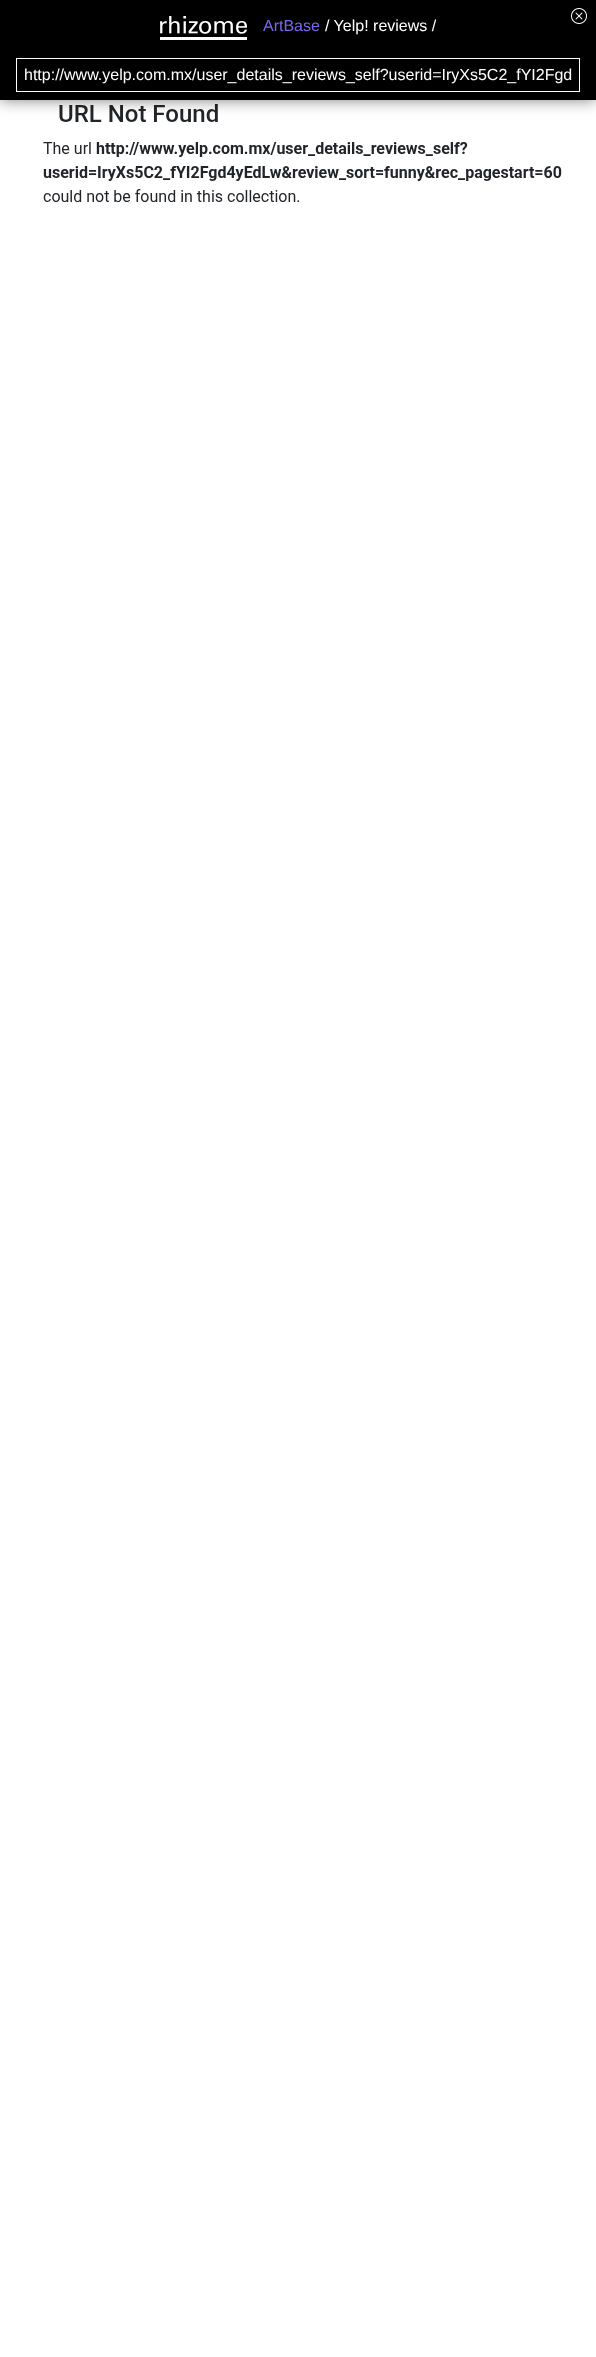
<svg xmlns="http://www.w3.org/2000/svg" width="596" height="2357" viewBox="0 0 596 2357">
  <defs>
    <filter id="blur1" x="-50%" y="-200%" width="200%" height="500%"><feGaussianBlur stdDeviation="7.5"/></filter>
  </defs>
  <rect width="100%" height="100%" fill="#ffffff"/>
  <image x="43" y="104" width="519" height="98" href="img3.png"/>
  <rect x="0" y="0" width="596" height="100" fill="#000000" fill-opacity="0.5" filter="url(#blur1)"/>
  <rect x="0" y="0" width="596" height="100" fill="#000000"/>
  <image x="160" y="16" width="87" height="24" href="img1.png"/>
  <text x="263" y="31" font-family="Liberation Sans" font-size="16" fill="#7b68ee">ArtBase</text>
  <text x="325" y="31" font-family="Liberation Sans" font-size="16" fill="#ffffff">/ Yelp! reviews /</text>
  <image x="571" y="8" width="16" height="16" href="img2.png"/>
  <rect x="16.5" y="58.5" width="563" height="33" fill="none" stroke="#ffffff"/>
  <text x="24" y="80" font-family="Liberation Sans" font-size="16" fill="#ffffff">http://www.yelp.com.mx/user_details_reviews_self?userid=IryXs5C2_fYI2Fgd</text>
</svg>
